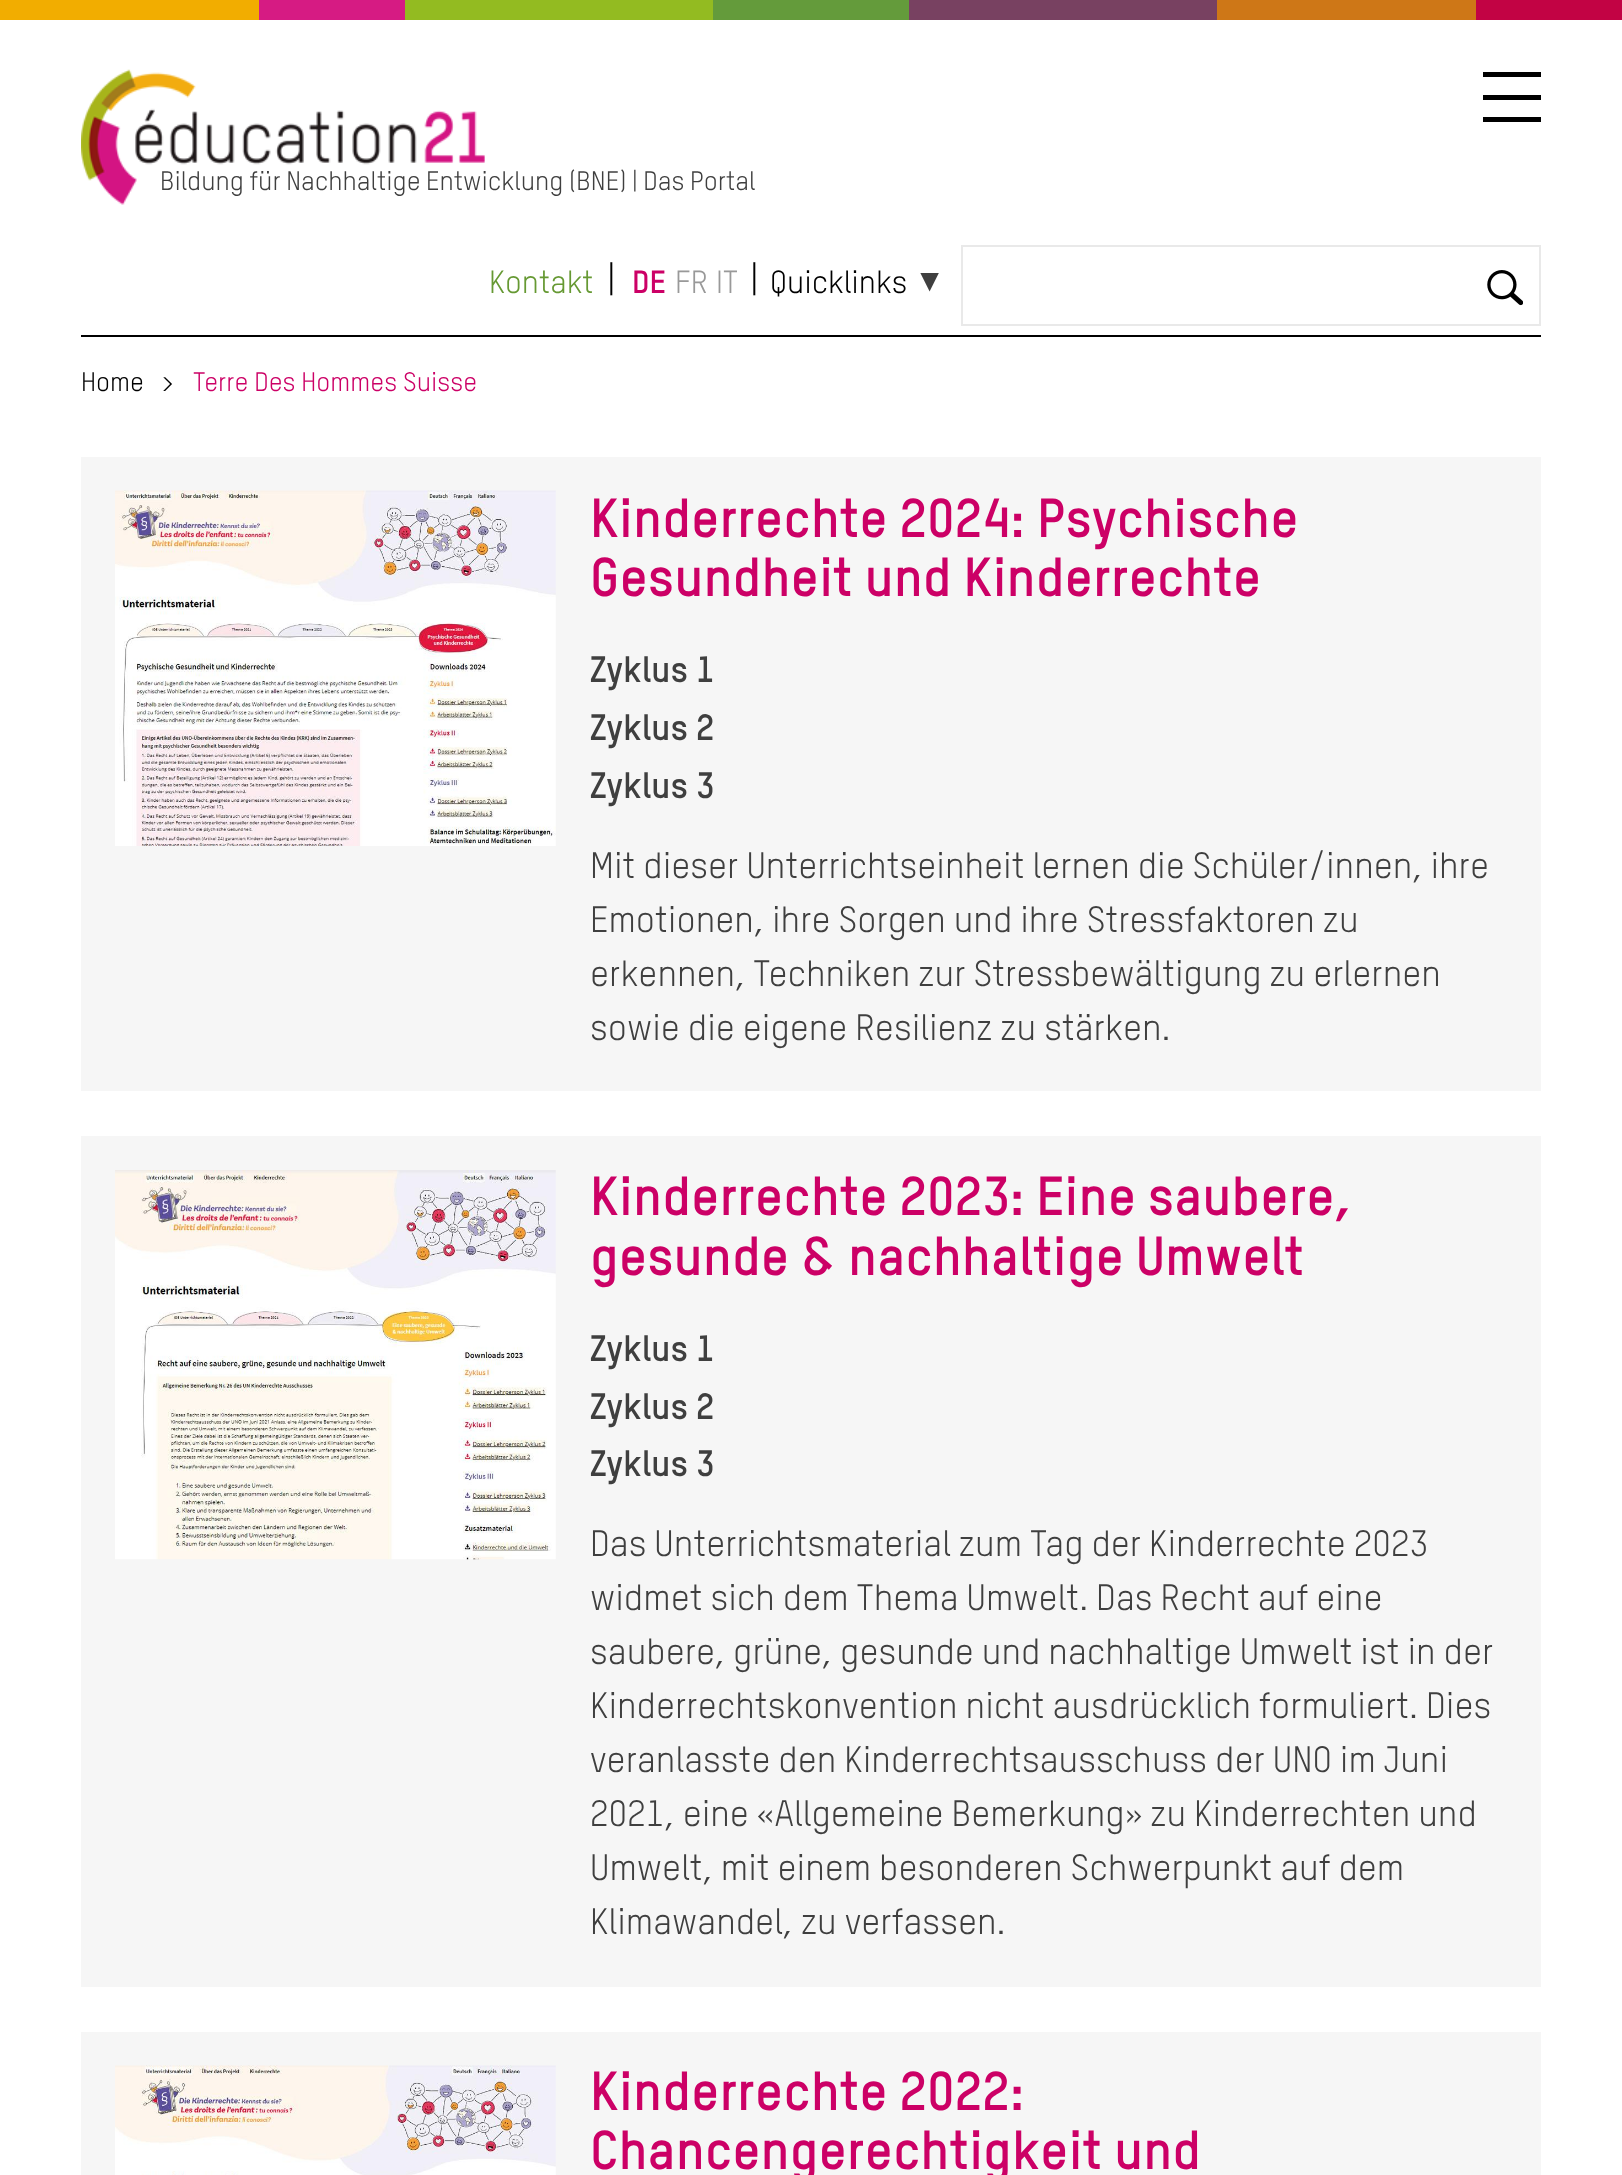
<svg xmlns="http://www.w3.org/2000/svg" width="1622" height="2175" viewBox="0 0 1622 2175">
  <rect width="100%" height="100%" fill="#ffffff"/>
  <rect x="0" y="0" width="259" height="20" fill="#f2ad00"/>
  <rect x="259" y="0" width="146" height="20" fill="#d61b83"/>
  <rect x="405" y="0" width="308" height="20" fill="#93bb21"/>
  <rect x="713" y="0" width="196" height="20" fill="#649b3b"/>
  <rect x="909" y="0" width="308" height="20" fill="#784161"/>
  <rect x="1217" y="0" width="259" height="20" fill="#ce7717"/>
  <rect x="1476" y="0" width="146" height="20" fill="#c20344"/>
  <rect x="1483" y="95" width="58" height="5" fill="#000000"/>
  <rect x="1483" y="72" width="58" height="5" fill="#000000"/>
  <rect x="1483" y="117" width="58" height="5" fill="#000000"/>
  <image x="81" y="69" width="404" height="136" href="img1.png"/>
  <text x="160" y="190" word-spacing="-0.25" font-family="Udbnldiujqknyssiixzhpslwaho" font-size="26.25" fill="#3f3f3f">Bildung für Nachhaltige Entwicklung (BNE) | Das Portal</text>
  <rect x="81" y="335" width="1460" height="2" fill="#000000"/>
  <text x="489" y="293" font-family="Udbnldiujqknyssiixzhpslwaho" font-size="31.5" fill="#669933">Kontakt</text>
  <text x="607" y="293" font-family="Udbnldiujqknyssiixzhpslwaho" font-size="40" fill="#000000">|</text>
  <text x="632" y="293" font-family="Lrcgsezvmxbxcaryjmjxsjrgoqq" font-size="31.5" font-weight="bold" fill="#cc0066">DE</text>
  <text x="675" y="293" font-family="Udbnldiujqknyssiixzhpslwaho" font-size="31.5" fill="#999999">FR</text>
  <text x="716" y="293" font-family="Udbnldiujqknyssiixzhpslwaho" font-size="31.5" fill="#999999">IT</text>
  <text x="750" y="293" font-family="Udbnldiujqknyssiixzhpslwaho" font-size="40" fill="#000000">|</text>
  <text x="770" y="293" font-family="Udbnldiujqknyssiixzhpslwaho" font-size="31.5" fill="#000000">Quicklinks</text>
  <text x="914" y="291" font-family="Liberation Sans" font-size="31.5" fill="#3f3f3f">▼</text>
  <image x="1487" y="270" width="36" height="36" href="img2.png"/>
  <rect x="962" y="246" width="578" height="79" fill="none" stroke="#e9e9e9" stroke-width="2"/>
  <text x="81" y="391" font-family="Udbnldiujqknyssiixzhpslwaho" font-size="26.25" fill="#000000">Home</text>
  <text x="161" y="391" font-family="Udbnldiujqknyssiixzhpslwaho" font-size="26.25" fill="#000000">&gt;</text>
  <text x="193" y="391" font-family="Udbnldiujqknyssiixzhpslwaho" font-size="26.25" fill="#cc0066">Terre Des Hommes Suisse</text>
  <rect x="81" y="457" width="1460" height="634" fill="#f6f6f6"/>
  <image x="115" y="490" width="441" height="356" href="img3.png"/>
  <text x="590" y="537" font-family="Lrcgsezvmxbxcaryjmjxsjrgoqq" font-size="54" font-weight="bold" fill="#cc0066">Kinderrechte 2024: Psychische</text>
  <text x="590" y="596" font-family="Lrcgsezvmxbxcaryjmjxsjrgoqq" font-size="54" font-weight="bold" fill="#cc0066">Gesundheit und Kinderrechte</text>
  <text x="590" y="682" font-family="Lrcgsezvmxbxcaryjmjxsjrgoqq" font-size="36" font-weight="bold" fill="#3f3f3f">Zyklus 1</text>
  <text x="590" y="740" font-family="Lrcgsezvmxbxcaryjmjxsjrgoqq" font-size="36" font-weight="bold" fill="#3f3f3f">Zyklus 2</text>
  <text x="590" y="798" font-family="Lrcgsezvmxbxcaryjmjxsjrgoqq" font-size="36" font-weight="bold" fill="#3f3f3f">Zyklus 3</text>
  <text x="590" y="878" font-family="Udbnldiujqknyssiixzhpslwaho" font-size="36" fill="#3f3f3f">Mit dieser Unterrichtseinheit lernen die Schüler/innen, ihre</text>
  <text x="590" y="932" font-family="Udbnldiujqknyssiixzhpslwaho" font-size="36" fill="#3f3f3f">Emotionen, ihre Sorgen und ihre Stressfaktoren zu</text>
  <text x="590" y="986" font-family="Udbnldiujqknyssiixzhpslwaho" font-size="36" fill="#3f3f3f">erkennen, Techniken zur Stressbewältigung zu erlernen</text>
  <text x="590" y="1040" font-family="Udbnldiujqknyssiixzhpslwaho" font-size="36" fill="#3f3f3f">sowie die eigene Resilienz zu stärken.</text>
  <rect x="81" y="1136" width="1460" height="851" fill="#f6f6f6"/>
  <image x="115" y="1170" width="441" height="390" href="img4.png"/>
  <text x="590" y="1215" font-family="Lrcgsezvmxbxcaryjmjxsjrgoqq" font-size="54" font-weight="bold" fill="#cc0066">Kinderrechte 2023: Eine saubere,</text>
  <text x="590" y="1275" font-family="Lrcgsezvmxbxcaryjmjxsjrgoqq" font-size="54" font-weight="bold" fill="#cc0066">gesunde &amp; nachhaltige Umwelt</text>
  <text x="590" y="1361" font-family="Lrcgsezvmxbxcaryjmjxsjrgoqq" font-size="36" font-weight="bold" fill="#3f3f3f">Zyklus 1</text>
  <text x="590" y="1419" font-family="Lrcgsezvmxbxcaryjmjxsjrgoqq" font-size="36" font-weight="bold" fill="#3f3f3f">Zyklus 2</text>
  <text x="590" y="1476" font-family="Lrcgsezvmxbxcaryjmjxsjrgoqq" font-size="36" font-weight="bold" fill="#3f3f3f">Zyklus 3</text>
  <text x="590" y="1556" font-family="Udbnldiujqknyssiixzhpslwaho" font-size="36" fill="#3f3f3f">Das Unterrichtsmaterial zum Tag der Kinderrechte 2023</text>
  <text x="590" y="1610" font-family="Udbnldiujqknyssiixzhpslwaho" font-size="36" fill="#3f3f3f">widmet sich dem Thema Umwelt. Das Recht auf eine</text>
  <text x="590" y="1664" font-family="Udbnldiujqknyssiixzhpslwaho" font-size="36" fill="#3f3f3f">saubere, grüne, gesunde und nachhaltige Umwelt ist in der</text>
  <text x="590" y="1718" font-family="Udbnldiujqknyssiixzhpslwaho" font-size="36" fill="#3f3f3f">Kinderrechtskonvention nicht ausdrücklich formuliert. Dies</text>
  <text x="590" y="1772" font-family="Udbnldiujqknyssiixzhpslwaho" font-size="36" fill="#3f3f3f">veranlasste den Kinderrechtsausschuss der UNO im Juni</text>
  <text x="590" y="1826" font-family="Udbnldiujqknyssiixzhpslwaho" font-size="36" fill="#3f3f3f">2021, eine «Allgemeine Bemerkung» zu Kinderrechten und</text>
  <text x="590" y="1880" font-family="Udbnldiujqknyssiixzhpslwaho" font-size="36" fill="#3f3f3f">Umwelt, mit einem besonderen Schwerpunkt auf dem</text>
  <text x="590" y="1934" font-family="Udbnldiujqknyssiixzhpslwaho" font-size="36" fill="#3f3f3f">Klimawandel, zu verfassen.</text>
  <rect x="81" y="2032" width="1460" height="143" fill="#f6f6f6"/>
  <image x="115" y="2065" width="441" height="110" href="img5.png"/>
  <text x="590" y="2110" font-family="Lrcgsezvmxbxcaryjmjxsjrgoqq" font-size="54" font-weight="bold" fill="#cc0066">Kinderrechte 2022:</text>
  <text x="590" y="2169" font-family="Lrcgsezvmxbxcaryjmjxsjrgoqq" font-size="54" font-weight="bold" fill="#cc0066">Chancengerechtigkeit und</text>
</svg>
